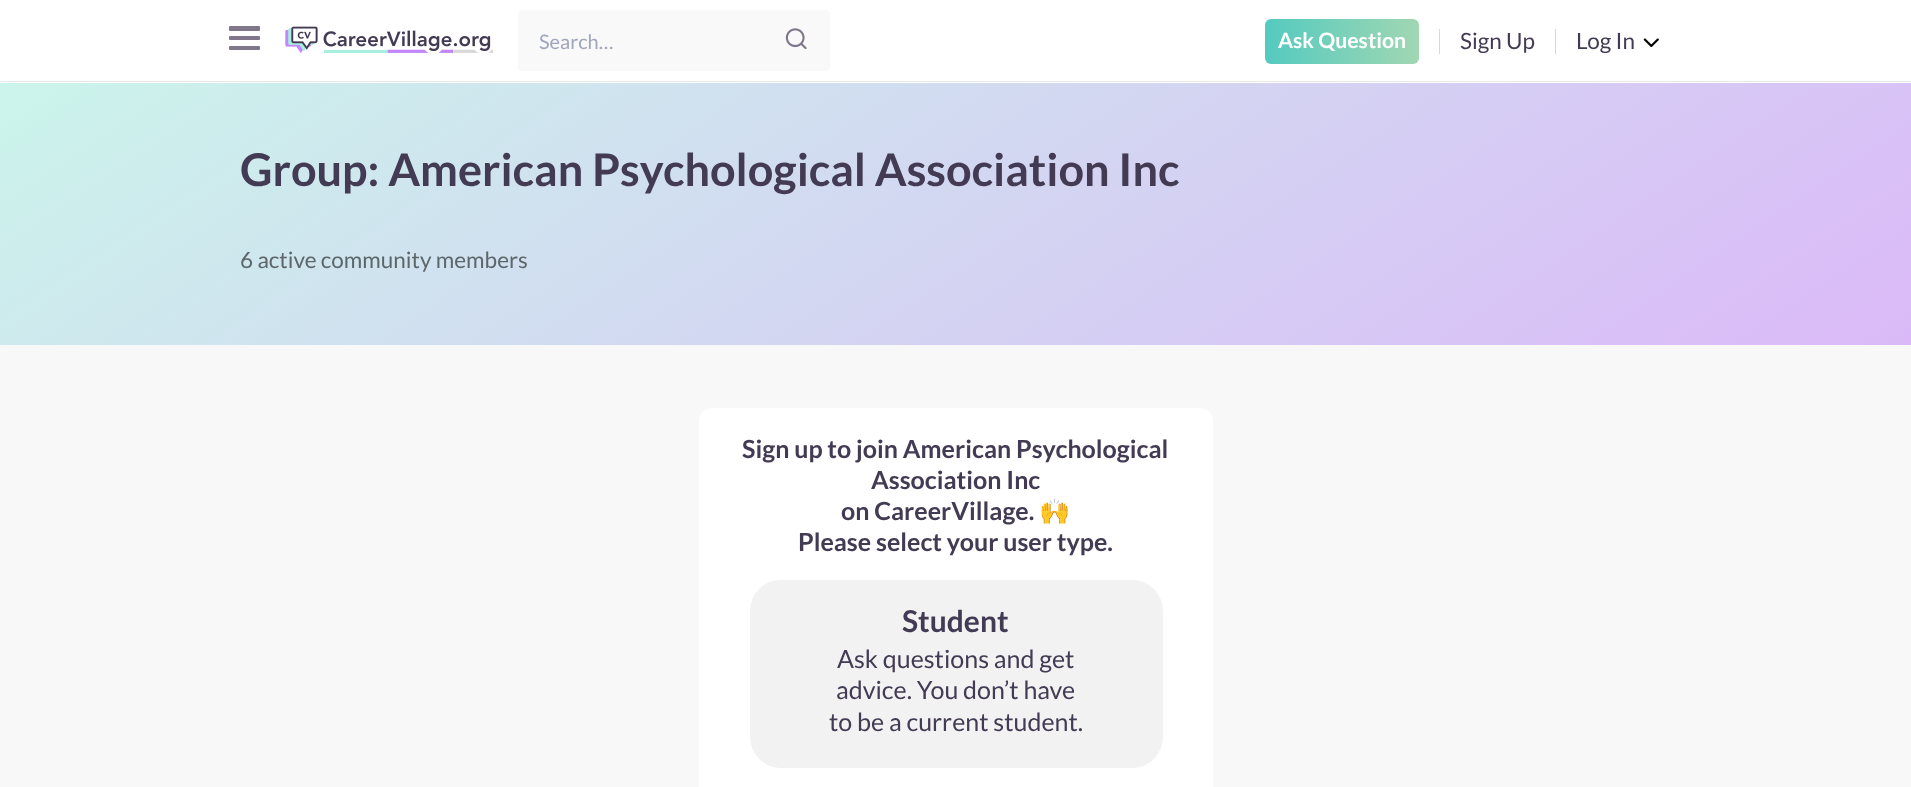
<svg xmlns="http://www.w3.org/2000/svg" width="1911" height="787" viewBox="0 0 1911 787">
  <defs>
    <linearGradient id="g1" gradientUnits="userSpaceOnUse" x1="1265" y1="41" x2="1419" y2="41"><stop offset="0" stop-color="#54cabf"/><stop offset="1" stop-color="#a1d7b3"/></linearGradient>
    <linearGradient id="g2" gradientUnits="userSpaceOnUse" x1="596" y1="-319" x2="1315" y2="747"><stop offset="0" stop-color="#cbf4eb"/><stop offset="1" stop-color="#dbb9f8"/></linearGradient>
  </defs>
  <rect width="100%" height="100%" fill="#f8f8f8"/>
  <rect x="0" y="0" width="1911" height="83" fill="#ffffff"/>
  <rect x="0" y="81" width="1911" height="1" fill="#e6e7e8"/>
  <rect x="229" y="26" width="31" height="5" rx="1" fill="#80778b"/>
  <rect x="229" y="36" width="31" height="4" rx="1" fill="#80778b"/>
  <rect x="229" y="46" width="31" height="4" rx="1" fill="#80778b"/>
  <image x="285" y="26" width="208" height="27" href="img1.png"/>
  <rect x="518" y="10" width="312" height="61" rx="4" fill="#f9f9f9"/>
  <text x="539" y="49" font-family="Lato" font-size="20" fill="#a1a6bf">Search…</text>
  <image x="785" y="28" width="22" height="22" href="img2.png"/>
  <rect x="1265" y="19" width="154" height="45" rx="6" fill="url(#g1)"/>
  <text x="1278" y="48" font-family="Lato" font-size="21.25" font-weight="bold" fill="#ffffff">Ask Question</text>
  <rect x="1439" y="29" width="1" height="25" fill="#d8d8d8"/>
  <text x="1460" y="49" font-family="Lato" font-size="22.5" fill="#433a53">Sign Up</text>
  <rect x="1555" y="29" width="1" height="25" fill="#d8d8d8"/>
  <text x="1576" y="49" font-family="Lato" font-size="22.5" fill="#433a53">Log In</text>
  <image x="1643" y="38" width="16" height="9" href="img3.png"/>
  <rect x="0" y="83" width="1911" height="262" fill="url(#g2)"/>
  <text x="240" y="186" font-family="Lato" font-size="45" font-weight="bold" fill="#433a53">Group: American Psychological Association Inc</text>
  <text x="240" y="268" font-family="Lato" font-size="22.5" fill="#5d676a">6 active community members</text>
  <rect x="699" y="408" width="514" height="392" rx="13" fill="#ffffff"/>
  <text x="742" y="458" font-family="Lato" font-size="25" font-weight="bold" fill="#433a53">Sign up to join American Psychological</text>
  <text x="871" y="489" font-family="Lato" font-size="25" font-weight="bold" fill="#433a53">Association Inc</text>
  <text x="841" y="520" font-family="Lato" font-size="25" font-weight="bold" fill="#433a53">on CareerVillage.</text>
  <text x="1039" y="520" font-family="Noto Color Emoji" font-size="25" font-weight="bold" fill="#433a53">🙌</text>
  <text x="798" y="551" font-family="Lato" font-size="25" font-weight="bold" fill="#433a53">Please select your user type.</text>
  <rect x="750" y="580" width="413" height="188" rx="31" fill="#f2f2f2"/>
  <text x="902" y="632" font-family="Lato" font-size="30" font-weight="bold" fill="#433a53">Student</text>
  <text x="837" y="668" font-family="Lato" font-size="25" fill="#433a53">Ask questions and get</text>
  <text x="836" y="699" font-family="Lato" font-size="25" fill="#433a53">advice. You don’t have</text>
  <text x="829" y="731" font-family="Lato" font-size="25" fill="#433a53">to be a current student.</text>
</svg>
